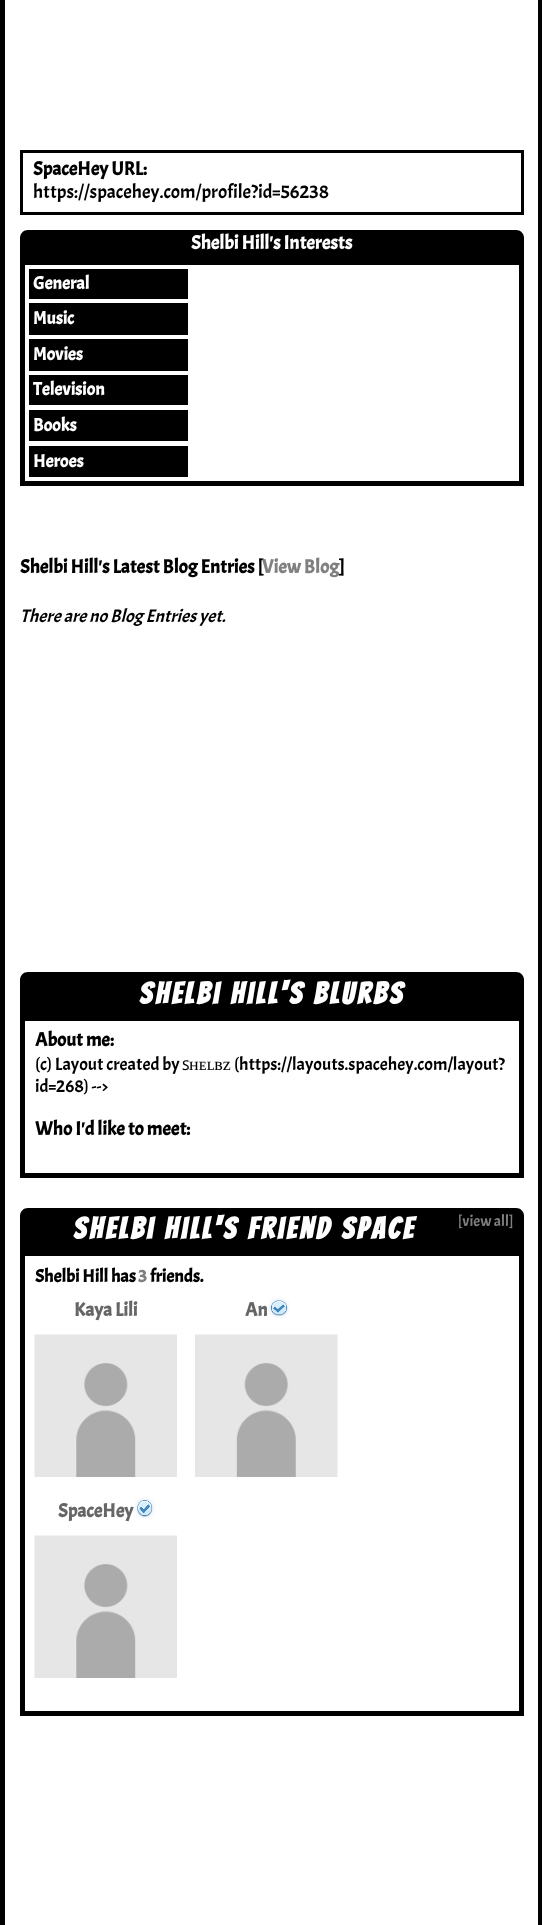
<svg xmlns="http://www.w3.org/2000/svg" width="542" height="1925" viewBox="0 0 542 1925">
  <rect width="100%" height="100%" fill="#ffffff"/>
  <rect x="2.5" y="-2.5" width="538" height="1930" fill="none" stroke="#000000" stroke-width="5"/>
  <rect x="21.5" y="151.5" width="501" height="62" fill="none" stroke="#000000" stroke-width="3"/>
  <text x="33" y="175" font-family="Acme" font-size="19.25" font-weight="bold" fill="#000000">SpaceHey URL:</text>
  <text x="33" y="198" font-family="Acme" font-size="19.25" fill="#000000">https://spacehey.com/profile?id=56238</text>
  <path d="M28 230H516C520.5 230 524 233.5 524 238V260H20V238C20 233.5 23.5 230 28 230Z" fill="#000000"/>
  <text x="191" y="249" font-family="Acme" font-size="19.25" font-weight="bold" fill="#ffffff">Shelbi Hill's Interests</text>
  <rect x="22.5" y="262.5" width="499" height="221" fill="none" stroke="#000000" stroke-width="5"/>
  <rect x="29" y="269" width="159" height="30" fill="#000000"/>
  <text x="33" y="289" font-family="Acme" font-size="18" font-weight="bold" fill="#ffffff">General</text>
  <rect x="29" y="303" width="159" height="32" fill="#000000"/>
  <text x="33" y="324" font-family="Acme" font-size="18" font-weight="bold" fill="#ffffff">Music</text>
  <rect x="29" y="339" width="159" height="32" fill="#000000"/>
  <text x="33" y="360" font-family="Acme" font-size="18" font-weight="bold" fill="#ffffff">Movies</text>
  <rect x="29" y="375" width="159" height="30" fill="#000000"/>
  <text x="33" y="395" font-family="Acme" font-size="18" font-weight="bold" fill="#ffffff">Television</text>
  <rect x="29" y="410" width="159" height="31" fill="#000000"/>
  <text x="33" y="431" font-family="Acme" font-size="18" font-weight="bold" fill="#ffffff">Books</text>
  <rect x="29" y="446" width="159" height="31" fill="#000000"/>
  <text x="33" y="467" font-family="Acme" font-size="18" font-weight="bold" fill="#ffffff">Heroes</text>
  <text x="20" y="573" font-family="Acme" font-size="19.25" font-weight="bold" fill="#000000">Shelbi Hill's Latest Blog Entries [</text>
  <text x="262" y="573" font-family="Acme" font-size="19.25" font-weight="bold" fill="#808080">View Blog</text>
  <text x="339" y="573" font-family="Acme" font-size="19.25" font-weight="bold" fill="#000000">]</text>
  <text x="20" y="622" font-family="Acme" font-size="18" font-style="italic" fill="#000000">There are no Blog Entries yet.</text>
  <path d="M28 972H516C520.5 972 524 975.5 524 980V1016H20V980C20 975.5 23.5 972 28 972Z" fill="#000000"/>
  <text x="139" y="1004" font-family="Bangers" font-size="30" font-weight="bold" letter-spacing="3" fill="#ffffff">Shelbi Hill's Blurbs</text>
  <rect x="22.5" y="1018.5" width="499" height="157" fill="none" stroke="#000000" stroke-width="5"/>
  <text x="35" y="1046" font-family="Acme" font-size="19.25" font-weight="bold" fill="#000000">About me:</text>
  <text x="35" y="1070" font-family="Acme" font-size="18" fill="#000000">(c) Layout created by</text>
  <text x="182" y="1070" font-family="Noto Sans" font-size="18" fill="#000000">ꜱ</text>
  <text x="189" y="1070" font-family="Liberation Serif" font-size="18" fill="#000000">ʜᴇʟʙᴢ</text>
  <text x="234" y="1070" font-family="Acme" font-size="18" fill="#000000">(https://layouts.spacehey.com/layout?</text>
  <text x="35" y="1092" font-family="Acme" font-size="18" fill="#000000">id=268) --&gt;</text>
  <text x="35" y="1135" font-family="Acme" font-size="19.25" font-weight="bold" fill="#000000">Who I'd like to meet:</text>
  <path d="M28 1208H516C520.5 1208 524 1211.5 524 1216V1251H20V1216C20 1211.5 23.5 1208 28 1208Z" fill="#000000"/>
  <text x="73" y="1239" font-family="Bangers" font-size="30" font-weight="bold" letter-spacing="3" fill="#ffffff">Shelbi Hill's Friend Space</text>
  <text x="458" y="1226" font-family="Acme" font-size="15.5" fill="#808080">[view all]</text>
  <rect x="22.5" y="1253.5" width="499" height="460" fill="none" stroke="#000000" stroke-width="5"/>
  <text x="35" y="1282" font-family="Acme" font-size="18" font-weight="bold" fill="#000000">Shelbi Hill has</text>
  <text x="138" y="1282" font-family="Acme" font-size="18" font-weight="bold" fill="#808080">3</text>
  <text x="150" y="1282" font-family="Acme" font-size="18" font-weight="bold" fill="#000000">friends.</text>
  <text x="74" y="1316" font-family="Acme" font-size="19.25" font-weight="bold" fill="#666666">Kaya Lili</text>
  <image x="34" y="1334" width="143" height="143" href="img1.png"/>
  <text x="245" y="1316" font-family="Acme" font-size="19.25" font-weight="bold" fill="#666666">An</text>
  <image x="268" y="1297" width="22" height="21" href="img2.png"/>
  <image x="195" y="1334" width="143" height="143" href="img3.png"/>
  <text x="58" y="1517" font-family="Acme" font-size="19.25" font-weight="bold" fill="#666666">SpaceHey</text>
  <image x="134" y="1497" width="22" height="23" href="img4.png"/>
  <image x="34" y="1535" width="143" height="143" href="img1.png"/>
</svg>
